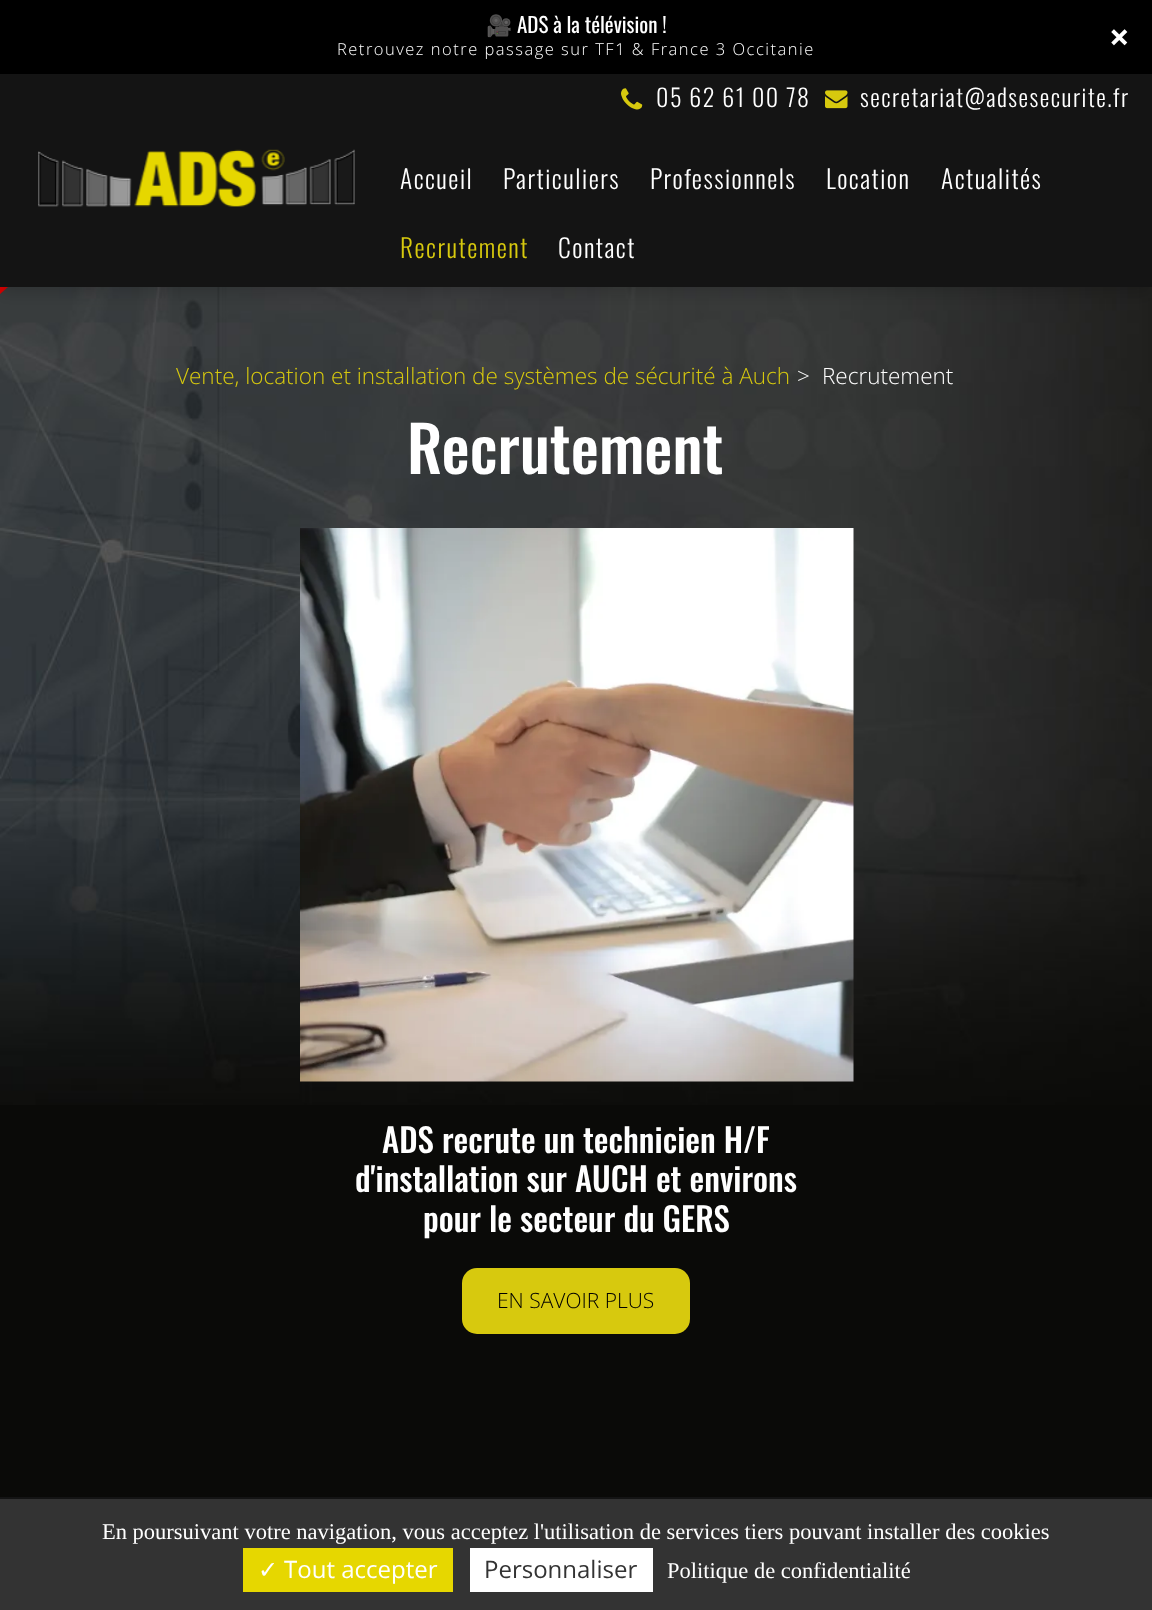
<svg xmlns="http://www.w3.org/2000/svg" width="1152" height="1610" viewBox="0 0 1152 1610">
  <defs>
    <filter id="blur1" x="-50%" y="-200%" width="200%" height="500%"><feGaussianBlur stdDeviation="7.5"/></filter>
  </defs>
  <rect width="100%" height="100%" fill="#0a0a08"/>
  <image x="0" y="287" width="1152" height="818" href="img5.png"/>
  <image x="0" y="287" width="8" height="7" href="img4.png"/>
  <rect x="0" y="8" width="1152" height="286" fill="#000000" fill-opacity="0.15" filter="url(#blur1)"/>
  <rect x="0" y="74" width="1152" height="213" fill="#141414"/>
  <rect x="0" y="0" width="1152" height="74" fill="#000000"/>
  <text x="486" y="33" font-family="Noto Color Emoji" font-size="21" fill="#ffffff">🎥</text>
  <text x="517" y="33" font-family="Oswald" font-size="21" fill="#ffffff">ADS à la télévision !</text>
  <text x="337" y="55" font-family="Open Sans" font-size="16.5" font-weight="300" letter-spacing="1.5" fill="#ffffff">Retrouvez notre passage sur TF1 &amp; France 3 Occitanie</text>
  <text x="1109" y="50" font-family="Open Sans" font-size="36" font-weight="bold" fill="#ffffff">×</text>
  <image x="38" y="149" width="317" height="58" href="img1.png"/>
  <image x="621" y="88" width="22" height="22" href="img2.png"/>
  <text x="656" y="107" font-family="Oswald" font-size="24" font-weight="300" letter-spacing="1.5" fill="#ffffff">05 62 61 00 78</text>
  <image x="825" y="90" width="23" height="19" href="img3.png"/>
  <text x="860" y="107" font-family="Oswald" font-size="24" font-weight="300" letter-spacing="1.5" fill="#ffffff">secretariat@adsesecurite.fr</text>
  <text x="400" y="189" font-family="Oswald" font-size="25.5" font-weight="300" letter-spacing="1.5" fill="#ffffff">Accueil</text>
  <text x="503" y="189" font-family="Oswald" font-size="25.5" font-weight="300" letter-spacing="1.5" fill="#ffffff">Particuliers</text>
  <text x="650" y="189" font-family="Oswald" font-size="25.5" font-weight="300" letter-spacing="1.5" fill="#ffffff">Professionnels</text>
  <text x="826" y="189" font-family="Oswald" font-size="25.5" font-weight="300" letter-spacing="1.5" fill="#ffffff">Location</text>
  <text x="941" y="189" font-family="Oswald" font-size="25.5" font-weight="300" letter-spacing="1.5" fill="#ffffff">Actualités</text>
  <text x="400" y="258" font-family="Oswald" font-size="25.5" font-weight="300" letter-spacing="1.5" fill="#d7c90e">Recrutement</text>
  <text x="558" y="258" font-family="Oswald" font-size="25.5" font-weight="300" letter-spacing="1.5" fill="#ffffff">Contact</text>
  <text x="176" y="384" font-family="Open Sans" font-size="22.5" font-weight="300" fill="#d7c90e">Vente, location et installation de systèmes de sécurité à Auch</text>
  <text x="797" y="384" font-family="Open Sans" font-size="22.5" font-weight="300" fill="#ffffff">&gt;</text>
  <text x="822" y="384" font-family="Open Sans" font-size="22.5" font-weight="300" fill="#ffffff">Recrutement</text>
  <text x="407" y="474" font-family="Oswald" font-size="63.25" font-weight="500" fill="#ffffff">Recrutement</text>
  <image x="300" y="528" width="554" height="554" href="img6.png"/>
  <text x="382" y="1153" font-family="Oswald" font-size="33" font-weight="500" fill="#ffffff">ADS recrute un technicien H/F</text>
  <text x="355" y="1192" font-family="Oswald" font-size="33" font-weight="500" fill="#ffffff">d'installation sur AUCH et environs</text>
  <text x="423" y="1232" font-family="Oswald" font-size="33" font-weight="500" fill="#ffffff">pour le secteur du GERS</text>
  <rect x="462" y="1268" width="228" height="66" rx="15" fill="#d7c90e"/>
  <text x="497" y="1308" font-family="Open Sans" font-size="21" font-weight="300" fill="#000000">EN SAVOIR PLUS</text>
  <rect x="0" y="1497" width="1152" height="2" fill="#141414"/>
  <rect x="0" y="1499" width="1152" height="111" fill="#333333"/>
  <text x="102" y="1539" font-family="Liberation Serif" font-size="22.5" fill="#ffffff">En poursuivant votre navigation, vous acceptez l'utilisation de services tiers pouvant installer des cookies</text>
  <rect x="243" y="1548" width="210" height="44" fill="#e6d700"/>
  <text x="258" y="1578" font-family="DejaVu Sans" font-size="24" fill="#ffffff">✓</text>
  <text x="284" y="1578" font-family="Open Sans" font-size="24" fill="#ffffff">Tout accepter</text>
  <rect x="470" y="1548" width="183" height="44" fill="#ffffff"/>
  <text x="484" y="1578" font-family="Open Sans" font-size="24" fill="#333333">Personnaliser</text>
  <text x="667" y="1578" font-family="Liberation Serif" font-size="22.5" fill="#ffffff">Politique de confidentialité</text>
</svg>
